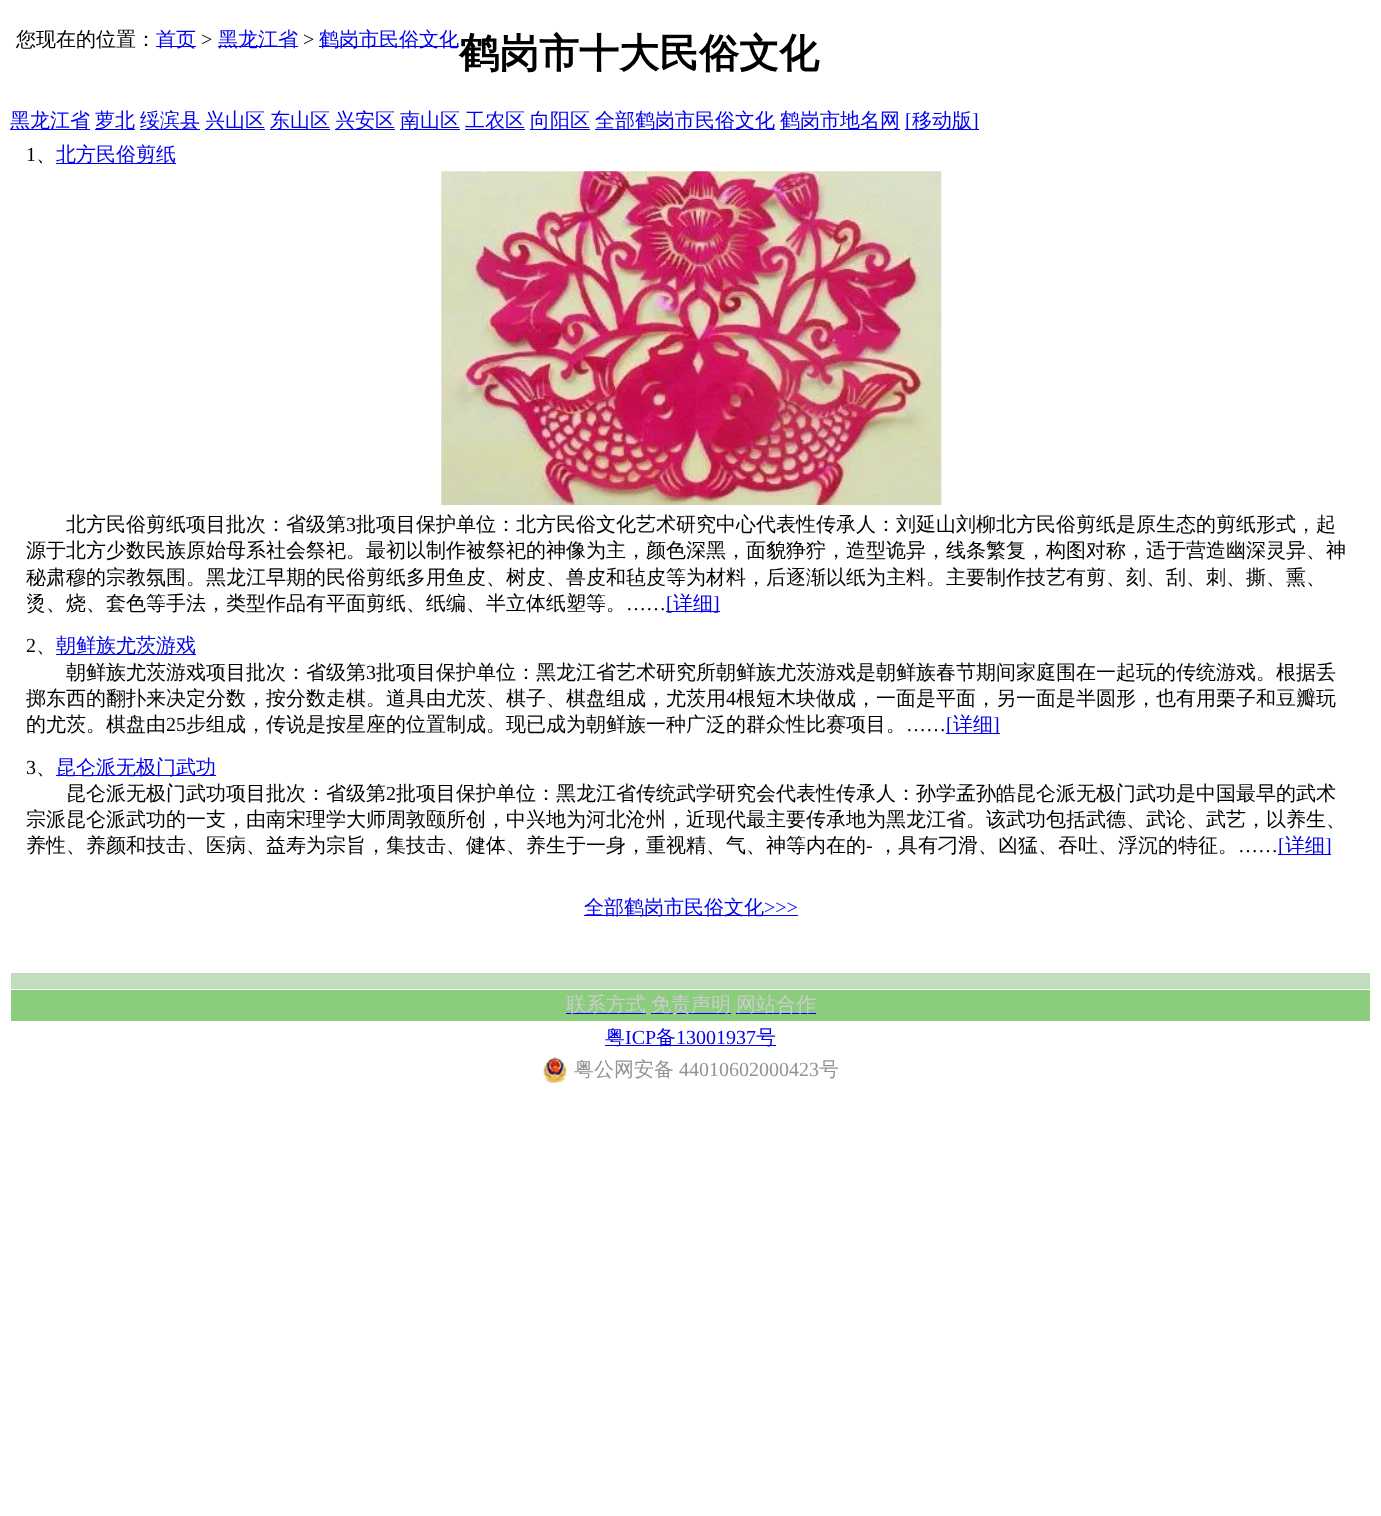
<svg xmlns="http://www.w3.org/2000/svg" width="1381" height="1516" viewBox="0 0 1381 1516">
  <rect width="100%" height="100%" fill="#ffffff"/>
  <text x="16" y="46" font-family="WenQuanYi Zen Hei" font-size="20" font-weight="500" fill="#000000">您现在的位置：</text>
  <rect x="156" y="46" width="40" height="1" fill="#0000ee"/>
  <text x="156" y="46" font-family="WenQuanYi Zen Hei" font-size="20" font-weight="500" fill="#0000ee">首页</text>
  <text x="201" y="46" font-family="Liberation Serif" font-size="20" fill="#000000">&gt;</text>
  <rect x="218" y="46" width="80" height="1" fill="#0000ee"/>
  <text x="218" y="46" font-family="WenQuanYi Zen Hei" font-size="20" font-weight="500" fill="#0000ee">黑龙江省</text>
  <text x="303" y="46" font-family="Liberation Serif" font-size="20" fill="#000000">&gt;</text>
  <rect x="319" y="46" width="140" height="1" fill="#0000ee"/>
  <text x="319" y="46" font-family="WenQuanYi Zen Hei" font-size="20" font-weight="500" fill="#0000ee">鹤岗市民俗文化</text>
  <text x="459" y="67" font-family="WenQuanYi Zen Hei" font-size="40" font-weight="bold" fill="#000000">鹤岗市十大民俗文化</text>
  <rect x="10" y="129" width="80" height="1" fill="#0000ee"/>
  <text x="10" y="127" font-family="WenQuanYi Zen Hei" font-size="20" font-weight="500" fill="#0000ee">黑龙江省</text>
  <rect x="95" y="129" width="40" height="1" fill="#0000ee"/>
  <text x="95" y="127" font-family="WenQuanYi Zen Hei" font-size="20" font-weight="500" fill="#0000ee">萝北</text>
  <rect x="140" y="129" width="60" height="1" fill="#0000ee"/>
  <text x="140" y="127" font-family="WenQuanYi Zen Hei" font-size="20" font-weight="500" fill="#0000ee">绥滨县</text>
  <rect x="205" y="129" width="60" height="1" fill="#0000ee"/>
  <text x="205" y="127" font-family="WenQuanYi Zen Hei" font-size="20" font-weight="500" fill="#0000ee">兴山区</text>
  <rect x="270" y="129" width="60" height="1" fill="#0000ee"/>
  <text x="270" y="127" font-family="WenQuanYi Zen Hei" font-size="20" font-weight="500" fill="#0000ee">东山区</text>
  <rect x="335" y="129" width="60" height="1" fill="#0000ee"/>
  <text x="335" y="127" font-family="WenQuanYi Zen Hei" font-size="20" font-weight="500" fill="#0000ee">兴安区</text>
  <rect x="400" y="129" width="60" height="1" fill="#0000ee"/>
  <text x="400" y="127" font-family="WenQuanYi Zen Hei" font-size="20" font-weight="500" fill="#0000ee">南山区</text>
  <rect x="465" y="129" width="60" height="1" fill="#0000ee"/>
  <text x="465" y="127" font-family="WenQuanYi Zen Hei" font-size="20" font-weight="500" fill="#0000ee">工农区</text>
  <rect x="530" y="129" width="60" height="1" fill="#0000ee"/>
  <text x="530" y="127" font-family="WenQuanYi Zen Hei" font-size="20" font-weight="500" fill="#0000ee">向阳区</text>
  <rect x="595" y="129" width="180" height="1" fill="#0000ee"/>
  <text x="595" y="127" font-family="WenQuanYi Zen Hei" font-size="20" font-weight="500" fill="#0000ee">全部鹤岗市民俗文化</text>
  <rect x="780" y="129" width="120" height="1" fill="#0000ee"/>
  <text x="780" y="127" font-family="WenQuanYi Zen Hei" font-size="20" font-weight="500" fill="#0000ee">鹤岗市地名网</text>
  <rect x="905" y="129" width="74" height="1" fill="#0000ee"/>
  <text x="905" y="127" font-family="Liberation Serif" font-size="20" fill="#0000ee">[</text>
  <text x="912" y="127" font-family="WenQuanYi Zen Hei" font-size="20" font-weight="500" fill="#0000ee">移动版</text>
  <text x="972" y="127" font-family="Liberation Serif" font-size="20" fill="#0000ee">]</text>
  <text x="26" y="161" font-family="Liberation Serif" font-size="20" fill="#000000">1</text>
  <rect x="56" y="163" width="120" height="1" fill="#0000ee"/>
  <text x="56" y="161" font-family="WenQuanYi Zen Hei" font-size="20" font-weight="500" fill="#0000ee">北方民俗剪纸</text>
  <text x="36" y="161" font-family="WenQuanYi Zen Hei" font-size="20" font-weight="500" fill="#000000">、</text>
  <image x="441" y="171" width="501" height="334" href="img1.png"/>
  <text x="66" y="531" font-family="WenQuanYi Zen Hei" font-size="20" font-weight="500" fill="#000000">北方民俗剪纸项目批次：省级第</text>
  <text x="346" y="531" font-family="Liberation Serif" font-size="20" fill="#000000">3</text>
  <text x="356" y="531" font-family="WenQuanYi Zen Hei" font-size="20" font-weight="500" fill="#000000">批项目保护单位：北方民俗文化艺术研究中心代表性传承人：刘延山刘柳北方民俗剪纸是原生态的剪纸形式，起</text>
  <text x="26" y="557" font-family="WenQuanYi Zen Hei" font-size="20" font-weight="500" fill="#000000">源于北方少数民族原始母系社会祭祀。最初以制作被祭祀的神像为主，颜色深黑，面貌狰狞，造型诡异，线条繁复，构图对称，适于营造幽深灵异、神</text>
  <text x="26" y="584" font-family="WenQuanYi Zen Hei" font-size="20" font-weight="500" fill="#000000">秘肃穆的宗教氛围。黑龙江早期的民俗剪纸多用鱼皮、树皮、兽皮和毡皮等为材料，后逐渐以纸为主料。主要制作技艺有剪、刻、刮、刺、撕、熏、</text>
  <text x="26" y="610" font-family="WenQuanYi Zen Hei" font-size="20" font-weight="500" fill="#000000">烫、烧、套色等手法，类型作品有平面剪纸、纸编、半立体纸塑等。</text>
  <text x="626" y="610" font-family="Liberation Serif" font-size="20" fill="#000000">……</text>
  <rect x="666" y="611" width="54" height="1" fill="#0000ee"/>
  <text x="666" y="610" font-family="Liberation Serif" font-size="20" fill="#0000ee">[</text>
  <text x="673" y="610" font-family="WenQuanYi Zen Hei" font-size="20" font-weight="500" fill="#0000ee">详细</text>
  <text x="713" y="610" font-family="Liberation Serif" font-size="20" fill="#0000ee">]</text>
  <text x="26" y="652" font-family="Liberation Serif" font-size="20" fill="#000000">2</text>
  <rect x="56" y="654" width="140" height="1" fill="#0000ee"/>
  <text x="56" y="652" font-family="WenQuanYi Zen Hei" font-size="20" font-weight="500" fill="#0000ee">朝鲜族尤茨游戏</text>
  <text x="36" y="652" font-family="WenQuanYi Zen Hei" font-size="20" font-weight="500" fill="#000000">、</text>
  <text x="66" y="679" font-family="WenQuanYi Zen Hei" font-size="20" font-weight="500" fill="#000000">朝鲜族尤茨游戏项目批次：省级第</text>
  <text x="366" y="679" font-family="Liberation Serif" font-size="20" fill="#000000">3</text>
  <text x="376" y="679" font-family="WenQuanYi Zen Hei" font-size="20" font-weight="500" fill="#000000">批项目保护单位：黑龙江省艺术研究所朝鲜族尤茨游戏是朝鲜族春节期间家庭围在一起玩的传统游戏。根据丢</text>
  <text x="26" y="705" font-family="WenQuanYi Zen Hei" font-size="20" font-weight="500" fill="#000000">掷东西的翻扑来决定分数，按分数走棋。道具由尤茨、棋子、棋盘组成，尤茨用</text>
  <text x="726" y="705" font-family="Liberation Serif" font-size="20" fill="#000000">4</text>
  <text x="736" y="705" font-family="WenQuanYi Zen Hei" font-size="20" font-weight="500" fill="#000000">根短木块做成，一面是平面，另一面是半圆形，也有用栗子和豆瓣玩</text>
  <text x="26" y="731" font-family="WenQuanYi Zen Hei" font-size="20" font-weight="500" fill="#000000">的尤茨。棋盘由</text>
  <text x="166" y="731" font-family="Liberation Serif" font-size="20" fill="#000000">25</text>
  <text x="186" y="731" font-family="WenQuanYi Zen Hei" font-size="20" font-weight="500" fill="#000000">步组成，传说是按星座的位置制成。现已成为朝鲜族一种广泛的群众性比赛项目。</text>
  <text x="906" y="731" font-family="Liberation Serif" font-size="20" fill="#000000">……</text>
  <rect x="946" y="733" width="54" height="1" fill="#0000ee"/>
  <text x="946" y="731" font-family="Liberation Serif" font-size="20" fill="#0000ee">[</text>
  <text x="953" y="731" font-family="WenQuanYi Zen Hei" font-size="20" font-weight="500" fill="#0000ee">详细</text>
  <text x="993" y="731" font-family="Liberation Serif" font-size="20" fill="#0000ee">]</text>
  <text x="26" y="774" font-family="Liberation Serif" font-size="20" fill="#000000">3</text>
  <text x="36" y="774" font-family="WenQuanYi Zen Hei" font-size="20" font-weight="500" fill="#000000">、</text>
  <rect x="56" y="775" width="160" height="1" fill="#0000ee"/>
  <text x="56" y="774" font-family="WenQuanYi Zen Hei" font-size="20" font-weight="500" fill="#0000ee">昆仑派无极门武功</text>
  <text x="66" y="800" font-family="WenQuanYi Zen Hei" font-size="20" font-weight="500" fill="#000000">昆仑派无极门武功项目批次：省级第</text>
  <text x="386" y="800" font-family="Liberation Serif" font-size="20" fill="#000000">2</text>
  <text x="396" y="800" font-family="WenQuanYi Zen Hei" font-size="20" font-weight="500" fill="#000000">批项目保护单位：黑龙江省传统武学研究会代表性传承人：孙学孟孙皓昆仑派无极门武功是中国最早的武术</text>
  <text x="26" y="826" font-family="WenQuanYi Zen Hei" font-size="20" font-weight="500" fill="#000000">宗派昆仑派武功的一支，由南宋理学大师周敦颐所创，中兴地为河北沧州，近现代最主要传承地为黑龙江省。该武功包括武德、武论、武艺，以养生、</text>
  <text x="26" y="852" font-family="WenQuanYi Zen Hei" font-size="20" font-weight="500" fill="#000000">养性、养颜和技击、医病、益寿为宗旨，集技击、健体、养生于一身，重视精、气、神等内在的</text>
  <text x="866" y="852" font-family="Liberation Serif" font-size="20" fill="#000000">-</text>
  <text x="878" y="852" font-family="WenQuanYi Zen Hei" font-size="20" font-weight="500" fill="#000000">，具有刁滑、凶猛、吞吐、浮沉的特征。</text>
  <rect x="1278" y="854" width="53" height="1" fill="#0000ee"/>
  <text x="1278" y="852" font-family="Liberation Serif" font-size="20" fill="#0000ee">[</text>
  <text x="1285" y="852" font-family="WenQuanYi Zen Hei" font-size="20" font-weight="500" fill="#0000ee">详细</text>
  <text x="1325" y="852" font-family="Liberation Serif" font-size="20" fill="#0000ee">]</text>
  <text x="1238" y="852" font-family="Liberation Serif" font-size="20" fill="#000000">……</text>
  <rect x="584" y="915" width="214" height="1" fill="#0000ee"/>
  <text x="584" y="914" font-family="WenQuanYi Zen Hei" font-size="20" font-weight="500" fill="#0000ee">全部鹤岗市民俗文化</text>
  <text x="764" y="914" font-family="Liberation Serif" font-size="20" fill="#0000ee">&gt;&gt;&gt;</text>
  <rect x="11" y="973" width="1359" height="16" fill="#c2ddbd"/>
  <rect x="11" y="990" width="1359" height="31" fill="#89cd7d"/>
  <rect x="566" y="1013" width="80" height="1" fill="#0000ee"/>
  <text x="566" y="1011" font-family="WenQuanYi Zen Hei" font-size="20" font-weight="500" fill="#cccccc">联系方式</text>
  <rect x="651" y="1013" width="80" height="1" fill="#0000ee"/>
  <text x="651" y="1011" font-family="WenQuanYi Zen Hei" font-size="20" font-weight="500" fill="#cccccc">免责声明</text>
  <rect x="736" y="1013" width="80" height="1" fill="#0000ee"/>
  <text x="736" y="1011" font-family="WenQuanYi Zen Hei" font-size="20" font-weight="500" fill="#cccccc">网站合作</text>
  <rect x="605" y="1045" width="171" height="1" fill="#0000ee"/>
  <text x="605" y="1044" font-family="WenQuanYi Zen Hei" font-size="20" font-weight="500" fill="#0000ee">粤</text>
  <text x="625" y="1044" font-family="Liberation Serif" font-size="20" fill="#0000ee">ICP</text>
  <text x="656" y="1044" font-family="WenQuanYi Zen Hei" font-size="20" font-weight="500" fill="#0000ee">备</text>
  <text x="676" y="1044" font-family="Liberation Serif" font-size="20" fill="#0000ee">13001937</text>
  <text x="756" y="1044" font-family="WenQuanYi Zen Hei" font-size="20" font-weight="500" fill="#0000ee">号</text>
  <image x="543" y="1057" width="24" height="26" href="img2.png"/>
  <text x="574" y="1076" font-family="WenQuanYi Zen Hei" font-size="20" font-weight="500" fill="#939393">粤公网安备</text>
  <text x="679" y="1076" font-family="Liberation Serif" font-size="20" fill="#939393">44010602000423</text>
  <text x="819" y="1076" font-family="WenQuanYi Zen Hei" font-size="20" font-weight="500" fill="#939393">号</text>
</svg>
